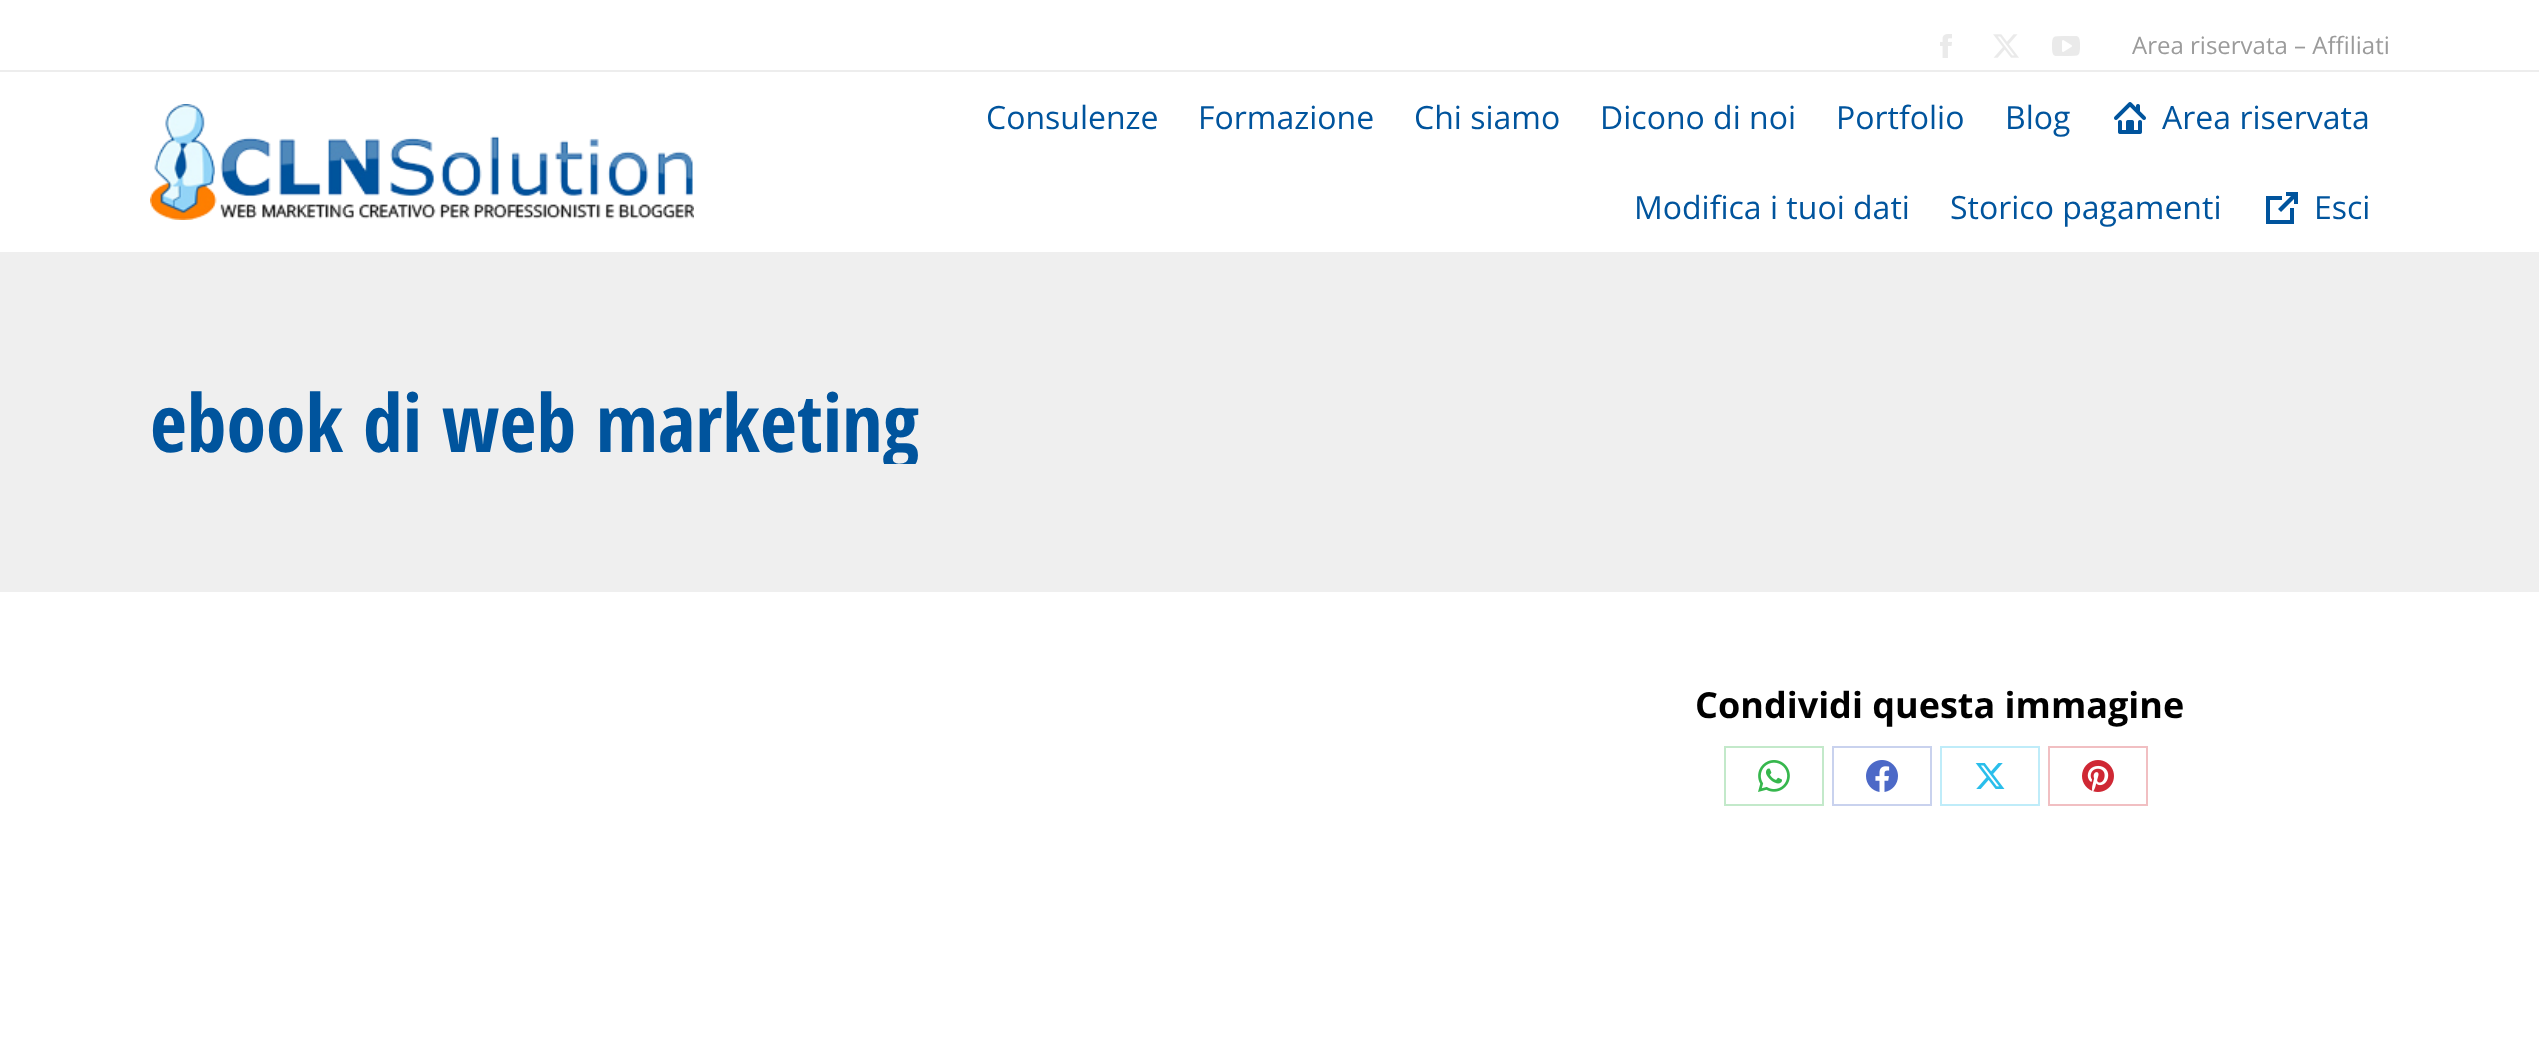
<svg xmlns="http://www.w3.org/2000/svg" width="2539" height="1046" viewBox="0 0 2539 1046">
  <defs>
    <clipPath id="clip1"><rect x="150" y="380" width="770" height="84"/></clipPath>
  </defs>
  <rect width="100%" height="100%" fill="#ffffff"/>
  <image x="1940" y="34" width="12" height="24" href="img1.png"/>
  <image x="1993" y="34" width="26" height="24" href="img2.png"/>
  <image x="2052" y="36" width="28" height="20" href="img3.png"/>
  <text x="2132" y="54" font-family="Open Sans" font-size="24" fill="#9b9b9b">Area riservata – Affiliati</text>
  <rect x="0" y="70" width="2539" height="2" fill="#ededed"/>
  <image x="150" y="104" width="544" height="116" href="img4.png"/>
  <text x="986" y="129" font-family="Open Sans" font-size="32" fill="#00549d">Consulenze</text>
  <text x="1198" y="129" font-family="Open Sans" font-size="32" fill="#00549d">Formazione</text>
  <text x="1414" y="129" font-family="Open Sans" font-size="32" fill="#00549d">Chi siamo</text>
  <text x="1600" y="129" font-family="Open Sans" font-size="32" fill="#00549d">Dicono di noi</text>
  <text x="1836" y="129" font-family="Open Sans" font-size="32" fill="#00549d">Portfolio</text>
  <text x="2005" y="129" font-family="Open Sans" font-size="32" fill="#00549d">Blog</text>
  <image x="2114" y="102" width="32" height="32" href="img5.png"/>
  <text x="2162" y="129" font-family="Open Sans" font-size="32" fill="#00549d">Area riservata</text>
  <text x="1634" y="219" font-family="Open Sans" font-size="32" fill="#00549d">Modifica i tuoi dati</text>
  <text x="1950" y="219" font-family="Open Sans" font-size="32" fill="#00549d">Storico pagamenti</text>
  <image x="2266" y="192" width="32" height="32" href="img6.png"/>
  <text x="2314" y="219" font-family="Open Sans" font-size="32" fill="#00549d">Esci</text>
  <rect x="0" y="252" width="2539" height="340" fill="#efefef"/>
  <g clip-path="url(#clip1)">
    <text x="150" y="452" font-family="Open Sans Condensed" font-size="80" font-weight="bold" fill="#00549d">ebook di web marketing</text>
  </g>
  <text x="1695" y="718" font-family="Open Sans" font-size="36" font-weight="bold" fill="#000000">Condividi questa immagine</text>
  <rect x="1725" y="747" width="98" height="58" fill="none" stroke="#c3e9ca" stroke-width="2"/>
  <image x="1758" y="760" width="32" height="32" href="img7.png"/>
  <rect x="1833" y="747" width="98" height="58" fill="none" stroke="#c9d2ee" stroke-width="2"/>
  <image x="1866" y="760" width="32" height="32" href="img8.png"/>
  <rect x="1941" y="747" width="98" height="58" fill="none" stroke="#bfecf9" stroke-width="2"/>
  <image x="1975" y="763" width="30" height="26" href="img9.png"/>
  <rect x="2049" y="747" width="98" height="58" fill="none" stroke="#f1bfc2" stroke-width="2"/>
  <image x="2082" y="760" width="32" height="32" href="img10.png"/>
</svg>
